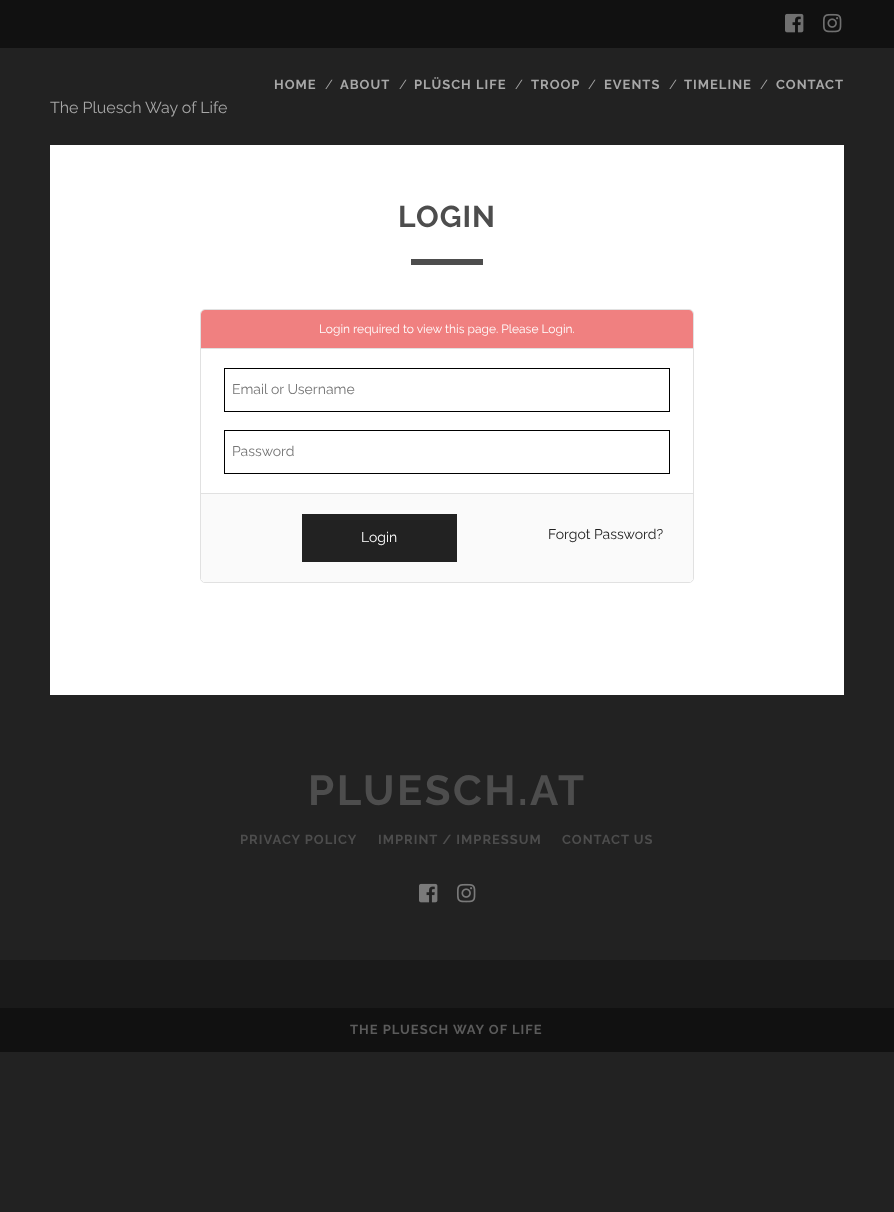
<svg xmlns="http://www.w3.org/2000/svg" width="894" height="1212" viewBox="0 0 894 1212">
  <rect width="100%" height="100%" fill="#222222"/>
  <rect x="0" y="0" width="894" height="48" fill="#111111"/>
  <image x="785" y="13" width="19" height="20" href="img1.png"/>
  <image x="823" y="13" width="19" height="20" href="img2.png"/>
  <text x="274" y="89" font-family="Raleway" font-size="13" font-weight="bold" letter-spacing="1" fill="#a7a7a7">HOME</text>
  <text x="325" y="89" font-family="Raleway" font-size="13" fill="#a7a7a7">/</text>
  <text x="340" y="89" font-family="Raleway" font-size="13" font-weight="bold" letter-spacing="1" fill="#a7a7a7">ABOUT</text>
  <text x="399" y="89" font-family="Raleway" font-size="13" fill="#a7a7a7">/</text>
  <text x="414" y="89" font-family="Raleway" font-size="13" font-weight="bold" letter-spacing="1" fill="#a7a7a7">PLÜSCH LIFE</text>
  <text x="515" y="89" font-family="Raleway" font-size="13" fill="#a7a7a7">/</text>
  <text x="531" y="89" font-family="Raleway" font-size="13" font-weight="bold" letter-spacing="1" fill="#a7a7a7">TROOP</text>
  <text x="588" y="89" font-family="Raleway" font-size="13" fill="#a7a7a7">/</text>
  <text x="604" y="89" font-family="Raleway" font-size="13" font-weight="bold" letter-spacing="1" fill="#a7a7a7">EVENTS</text>
  <text x="669" y="89" font-family="Raleway" font-size="13" fill="#a7a7a7">/</text>
  <text x="684" y="89" font-family="Raleway" font-size="13" font-weight="bold" letter-spacing="1" fill="#a7a7a7">TIMELINE</text>
  <text x="760" y="89" font-family="Raleway" font-size="13" fill="#a7a7a7">/</text>
  <text x="776" y="89" font-family="Raleway" font-size="13" font-weight="bold" letter-spacing="1" fill="#a7a7a7">CONTACT</text>
  <text x="50" y="113" font-family="Raleway" font-size="16" fill="#a7a7a7">The Pluesch Way of Life</text>
  <rect x="50" y="145" width="794" height="550" fill="#ffffff"/>
  <text x="398" y="227" font-family="Raleway" font-size="30" font-weight="bold" letter-spacing="1" fill="#4d4d4d">LOGIN</text>
  <rect x="411" y="259" width="72" height="6" fill="#4d4d4d"/>
  <rect x="200.5" y="309.5" width="493" height="273" rx="4.5" fill="none" stroke="#e1e1e1"/>
  <path d="M205 310H689C691 310 693 312 693 314V348H201V314C201 312 203 310 205 310Z" fill="#f08080"/>
  <rect x="201" y="348" width="492" height="1" fill="#e1e1e1"/>
  <text x="319" y="333" font-family="Raleway" font-size="12" fill="#ffffff">Login required to view this page. Please Login.</text>
  <path d="M201 349H693V578C693 580 691 582 689 582H205C203 582 201 580 201 578Z" fill="#ffffff"/>
  <rect x="224.5" y="368.5" width="445" height="43" fill="none" stroke="#000000"/>
  <text x="232" y="394" font-family="Raleway" font-size="14" fill="#757575">Email or Username</text>
  <rect x="224.5" y="430.5" width="445" height="43" fill="none" stroke="#000000"/>
  <text x="232" y="456" font-family="Raleway" font-size="14" fill="#757575">Password</text>
  <path d="M201 494H693V578C693 580 691 582 689 582H205C203 582 201 580 201 578Z" fill="#fafafa"/>
  <rect x="201" y="493" width="492" height="1" fill="#e1e1e1"/>
  <rect x="302" y="514" width="155" height="48" fill="#222222"/>
  <text x="361" y="542" font-family="Raleway" font-size="14" fill="#ffffff">Login</text>
  <text x="548" y="539" font-family="Raleway" font-size="14" fill="#222222">Forgot Password?</text>
  <text x="308" y="805" font-family="Raleway" font-size="42" font-weight="bold" letter-spacing="2.5" fill="#4d4d4d">PLUESCH.AT</text>
  <text x="240" y="844" font-family="Raleway" font-size="13" font-weight="bold" letter-spacing="1" fill="#4d4d4d">PRIVACY POLICY</text>
  <text x="378" y="844" font-family="Raleway" font-size="13" font-weight="bold" letter-spacing="1" fill="#4d4d4d">IMPRINT / IMPRESSUM</text>
  <text x="562" y="844" font-family="Raleway" font-size="13" font-weight="bold" letter-spacing="1" fill="#4d4d4d">CONTACT US</text>
  <image x="419" y="883" width="19" height="20" href="img3.png"/>
  <image x="457" y="883" width="19" height="20" href="img4.png"/>
  <rect x="0" y="960" width="894" height="48" fill="#1a1a1a"/>
  <rect x="0" y="1008" width="894" height="44" fill="#111111"/>
  <text x="350" y="1034" font-family="Raleway" font-size="13" font-weight="bold" letter-spacing="1" fill="#5b5b5b">THE PLUESCH WAY OF LIFE</text>
</svg>
